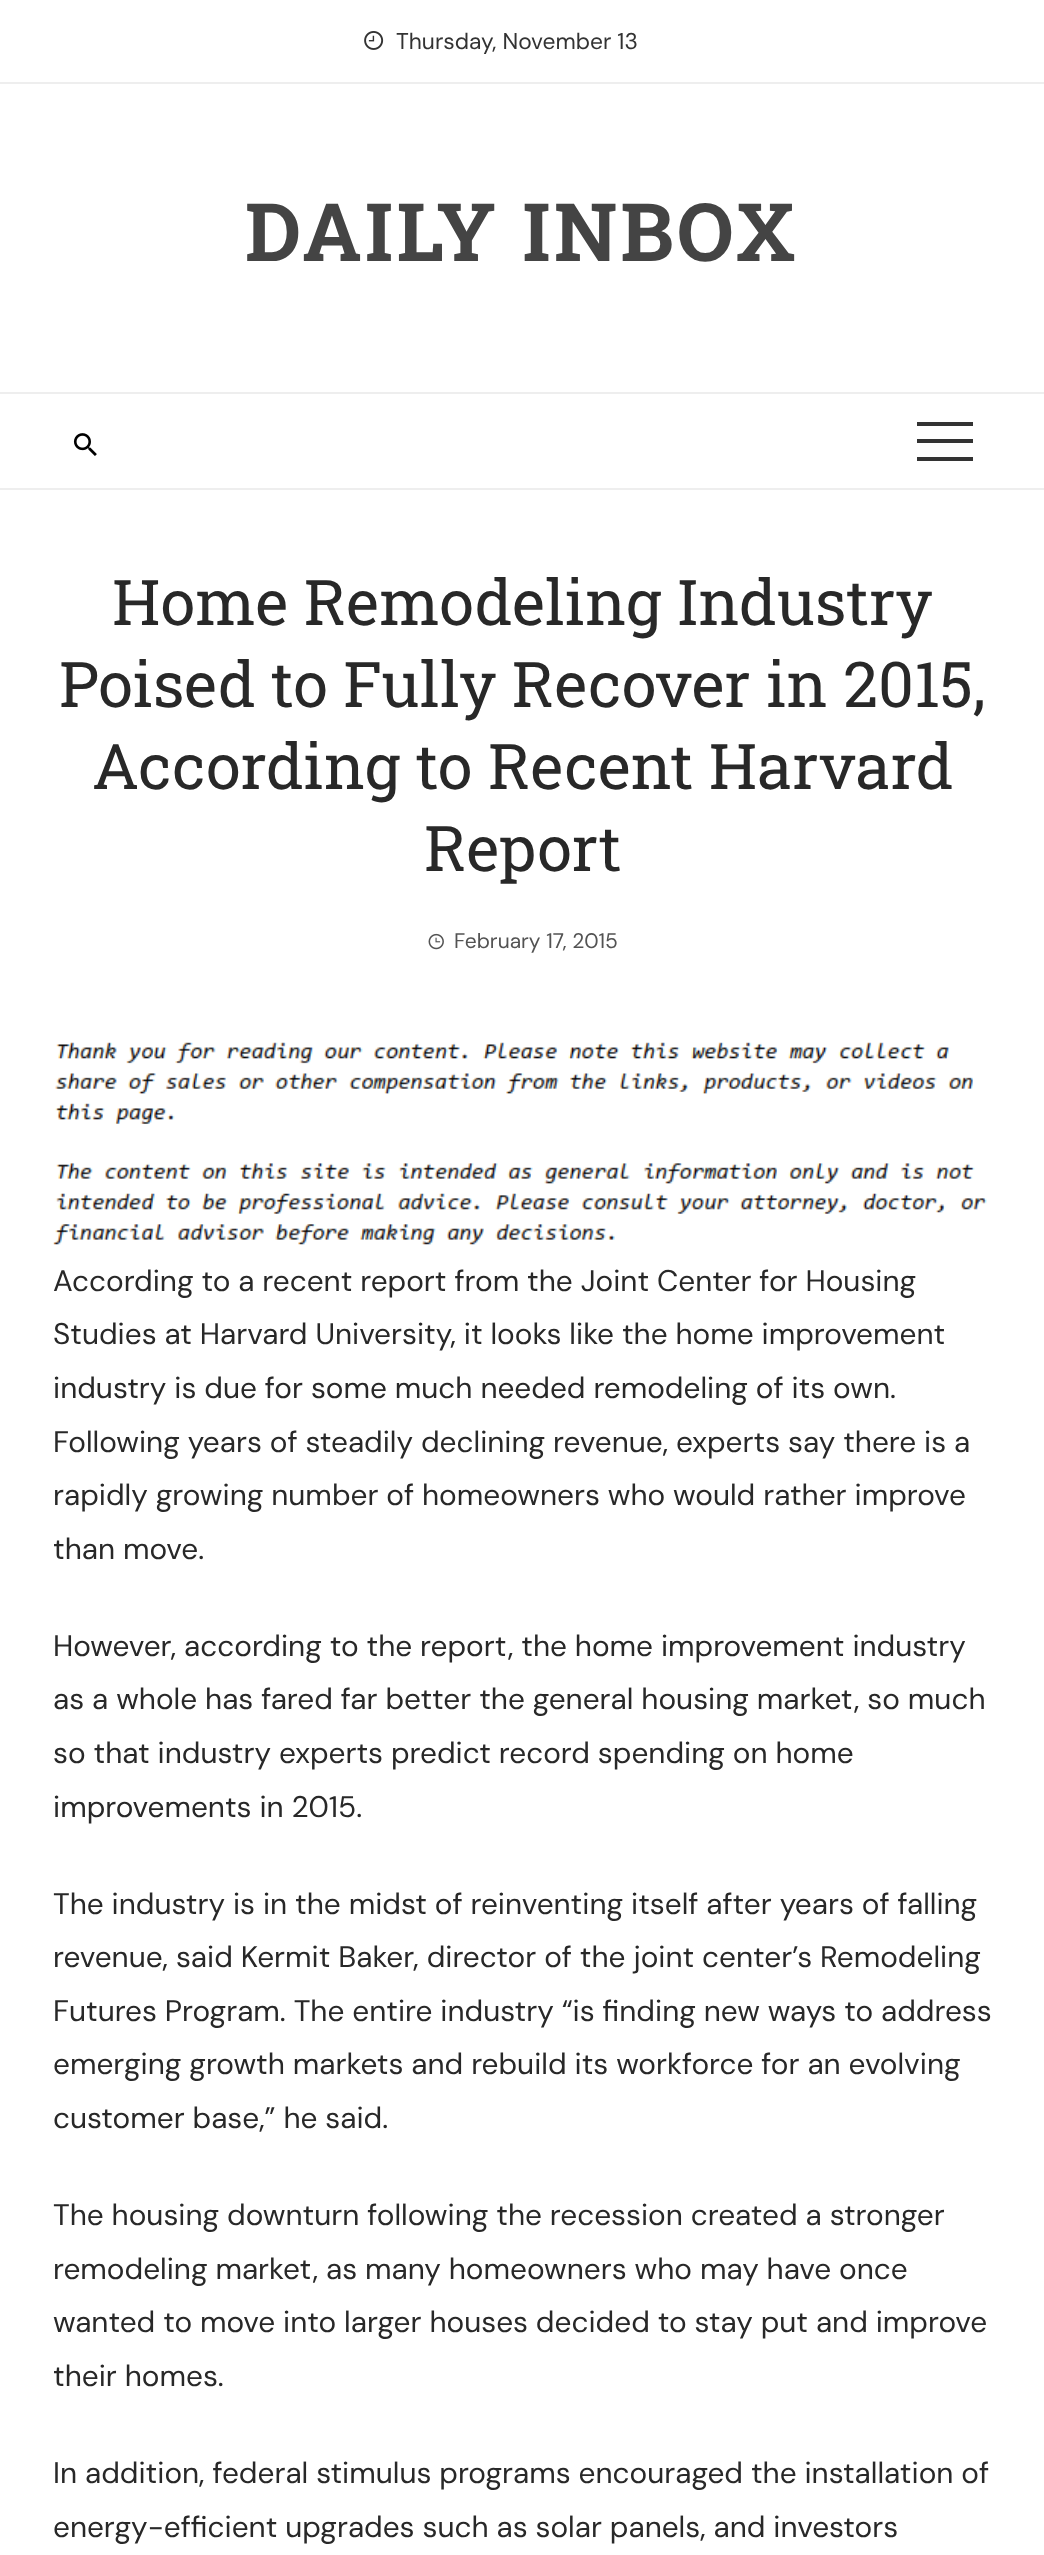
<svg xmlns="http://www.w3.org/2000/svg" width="1044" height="2555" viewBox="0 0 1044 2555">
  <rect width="100%" height="100%" fill="#ffffff"/>
  <rect x="0" y="82" width="1044" height="2" fill="#eeeeee"/>
  <image x="364" y="31" width="20" height="19" href="img1.png"/>
  <text x="396" y="49" font-family="DM Sans" font-size="22.75" fill="#333333">Thursday, November 13</text>
  <text x="245" y="261" font-family="Roboto Slab" font-size="80.5" font-weight="bold" letter-spacing="3.5" fill="#444444">DAILY INBOX</text>
  <rect x="0" y="392" width="1044" height="2" fill="#eeeeee"/>
  <rect x="0" y="488" width="1044" height="2" fill="#eeeeee"/>
  <image x="73" y="433" width="24" height="23" href="img2.png"/>
  <rect x="917" y="422" width="56" height="4" fill="#333333"/>
  <rect x="917" y="457" width="56" height="4" fill="#333333"/>
  <rect x="917" y="439" width="56" height="4" fill="#333333"/>
  <text x="112" y="625" font-family="Roboto Slab" font-size="63" fill="#282828">Home Remodeling Industry</text>
  <text x="59" y="707" font-family="Roboto Slab" font-size="63" fill="#282828">Poised to Fully Recover in 2015,</text>
  <text x="92" y="789" font-family="Roboto Slab" font-size="63" fill="#282828">According to Recent Harvard</text>
  <text x="424" y="871" font-family="Roboto Slab" font-size="63" fill="#282828">Report</text>
  <image x="428" y="933" width="16" height="17" href="img3.png"/>
  <text x="454" y="948" font-family="DM Sans" font-size="21" fill="#535353">February 17, 2015</text>
  <image x="52" y="1042" width="935" height="203" href="img4.png"/>
  <text x="53" y="1291" font-family="DM Sans" font-size="29.75" fill="#282828">According to a recent report from the Joint Center for Housing</text>
  <text x="53" y="1344" font-family="DM Sans" font-size="29.75" fill="#282828">Studies at Harvard University, it looks like the home improvement</text>
  <text x="53" y="1398" font-family="DM Sans" font-size="29.75" fill="#282828">industry is due for some much needed remodeling of its own.</text>
  <text x="53" y="1452" font-family="DM Sans" font-size="29.75" fill="#282828">Following years of steadily declining revenue, experts say there is a</text>
  <text x="53" y="1505" font-family="DM Sans" font-size="29.75" fill="#282828">rapidly growing number of homeowners who would rather improve</text>
  <text x="53" y="1559" font-family="DM Sans" font-size="29.75" fill="#282828">than move.</text>
  <text x="53" y="1656" font-family="DM Sans" font-size="29.75" fill="#282828">However, according to the report, the home improvement industry</text>
  <text x="53" y="1709" font-family="DM Sans" font-size="29.75" fill="#282828">as a whole has fared far better the general housing market, so much</text>
  <text x="53" y="1763" font-family="DM Sans" font-size="29.75" fill="#282828">so that industry experts predict record spending on home</text>
  <text x="53" y="1817" font-family="DM Sans" font-size="29.75" fill="#282828">improvements in 2015.</text>
  <text x="53" y="1914" font-family="DM Sans" font-size="29.75" fill="#282828">The industry is in the midst of reinventing itself after years of falling</text>
  <text x="53" y="1967" font-family="DM Sans" font-size="29.75" fill="#282828">revenue, said Kermit Baker, director of the joint center’s Remodeling</text>
  <text x="53" y="2021" font-family="DM Sans" font-size="29.75" fill="#282828">Futures Program. The entire industry “is finding new ways to address</text>
  <text x="53" y="2074" font-family="DM Sans" font-size="29.75" fill="#282828">emerging growth markets and rebuild its workforce for an evolving</text>
  <text x="53" y="2128" font-family="DM Sans" font-size="29.75" fill="#282828">customer base,” he said.</text>
  <text x="53" y="2225" font-family="DM Sans" font-size="29.75" fill="#282828">The housing downturn following the recession created a stronger</text>
  <text x="53" y="2279" font-family="DM Sans" font-size="29.75" fill="#282828">remodeling market, as many homeowners who may have once</text>
  <text x="53" y="2332" font-family="DM Sans" font-size="29.75" fill="#282828">wanted to move into larger houses decided to stay put and improve</text>
  <text x="53" y="2386" font-family="DM Sans" font-size="29.75" fill="#282828">their homes.</text>
  <text x="53" y="2483" font-family="DM Sans" font-size="29.75" fill="#282828">In addition, federal stimulus programs encouraged the installation of</text>
  <text x="53" y="2537" font-family="DM Sans" font-size="29.75" fill="#282828">energy-efficient upgrades such as solar panels, and investors</text>
</svg>
